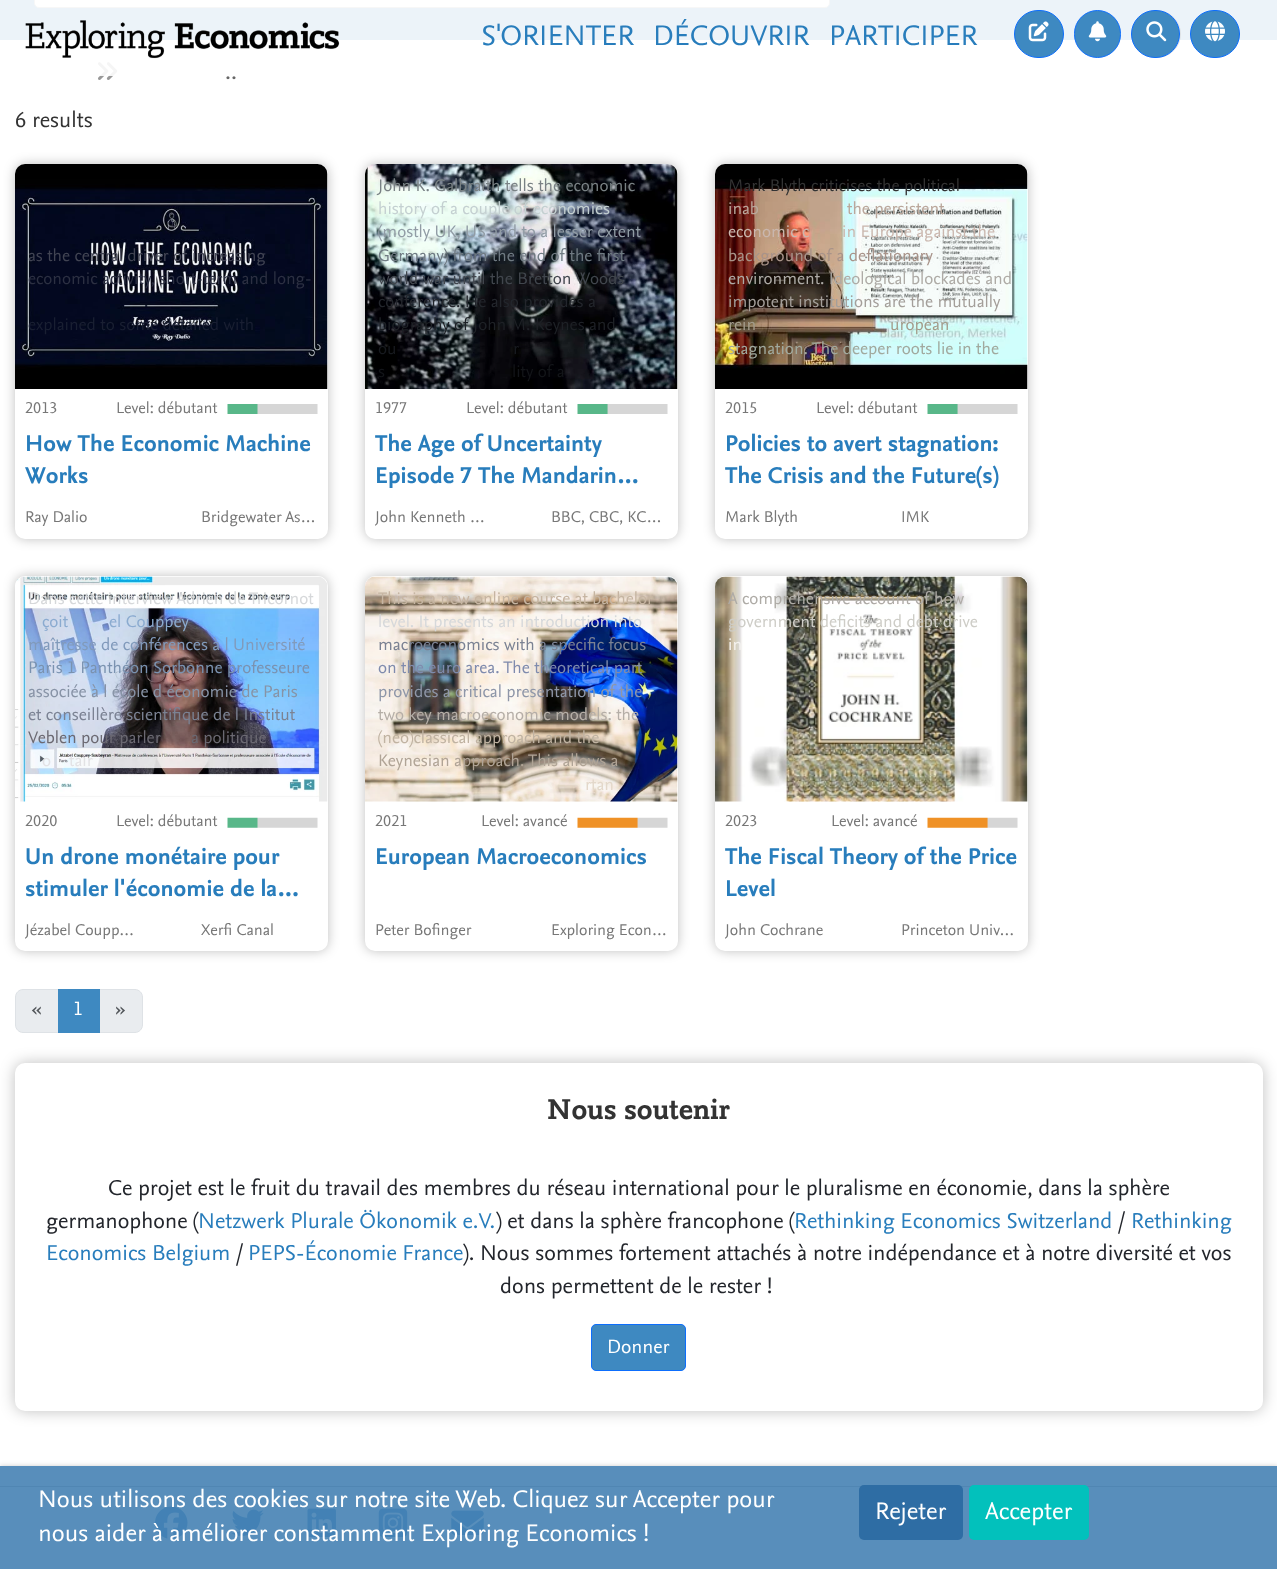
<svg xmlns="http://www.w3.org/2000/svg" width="1277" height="1569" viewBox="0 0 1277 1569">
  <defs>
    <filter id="blur1" x="-50%" y="-200%" width="200%" height="500%"><feGaussianBlur stdDeviation="6"/></filter>
    <clipPath id="clip1"><rect x="365" y="430" width="313" height="58"/></clipPath>
    <clipPath id="clip2"><rect x="375" y="508" width="118" height="21"/></clipPath>
    <clipPath id="clip3"><rect x="715" y="430" width="313" height="58"/></clipPath>
    <clipPath id="clip4"><rect x="25" y="920" width="118" height="21"/></clipPath>
    <clipPath id="clip5"><rect x="725" y="920" width="118" height="21"/></clipPath>
    <filter id="blur2" x="-50%" y="-200%" width="200%" height="500%"><feGaussianBlur stdDeviation="7.5"/></filter>
    <clipPath id="clip6"><path d="M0 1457H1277V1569H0ZM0 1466H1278V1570H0Z" clip-rule="evenodd"/></clipPath>
    <filter id="blur3" x="-50%" y="-200%" width="200%" height="500%"><feGaussianBlur stdDeviation="2.5"/></filter>
  </defs>
  <rect width="100%" height="100%" fill="#ffffff"/>
  <rect x="0" y="0" width="1277" height="40" fill="#3e89c1"/>
  <rect x="34.5" y="-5.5" width="795" height="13" rx="4.5" fill="#ffffff" stroke="#aaaaaa"/>
  <image x="98" y="62" width="20" height="18" href="img6.png"/>
  <rect x="0" y="0" width="1277" height="76" fill="#ffffff" fill-opacity="0.9"/>
  <image x="25" y="20" width="315" height="39" href="img1.png"/>
  <text x="481" y="45" font-family="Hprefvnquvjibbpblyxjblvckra" font-size="29.5" fill="#287dbc">S'ORIENTER</text>
  <text x="653" y="45" font-family="Hprefvnquvjibbpblyxjblvckra" font-size="29.5" fill="#287dbc">DÉCOUVRIR</text>
  <text x="829" y="45" font-family="Hprefvnquvjibbpblyxjblvckra" font-size="29.5" fill="#287dbc">PARTICIPER</text>
  <rect x="1014.5" y="10.5" width="49" height="47" rx="23.5" fill="#3e89c1" stroke="#0d6efd"/>
  <image x="1028" y="21" width="21" height="21" href="img2.png"/>
  <rect x="1074.5" y="10.5" width="46" height="47" rx="23" fill="#3e89c1" stroke="#0d6efd"/>
  <image x="1088" y="21" width="19" height="21" href="img3.png"/>
  <rect x="1131.5" y="10.5" width="49" height="47" rx="23.5" fill="none" stroke="#dee2e6"/>
  <rect x="1131.5" y="10.5" width="48" height="47" rx="23.5" fill="#3e89c1" stroke="#0d6efd"/>
  <image x="1146" y="21" width="21" height="21" href="img4.png"/>
  <rect x="1190.5" y="10.5" width="49" height="47" rx="23.5" fill="#3e89c1" stroke="#0d6efd"/>
  <image x="1205" y="21" width="20" height="21" href="img5.png"/>
  <text x="225" y="79" font-family="Hprefvnquvjibbpblyxjblvckra" font-size="23.75" fill="#666666">..</text>
  <text x="15" y="127" font-family="Hprefvnquvjibbpblyxjblvckra" font-size="22.5" fill="#333333">6 results</text>
  <rect x="15" y="164" width="313" height="375" rx="10" fill="#000000" fill-opacity="0.25" filter="url(#blur1)"/>
  <rect x="15" y="164" width="313" height="375" rx="10" fill="#ffffff"/>
  <image x="15" y="164" width="313" height="225" href="img7.png"/>
  <text x="28" y="261" font-family="Hprefvnquvjibbpblyxjblvckra" font-size="17.5" fill="#414453">as the central driver of increasing</text>
  <text x="28" y="284" font-family="Hprefvnquvjibbpblyxjblvckra" font-size="17.5" fill="#2c3042">economic activity, short-term and long-</text>
  <text x="144" y="307" font-family="Hprefvnquvjibbpblyxjblvckra" font-size="17.5" fill="#0c1226">.</text>
  <text x="28" y="330" font-family="Hprefvnquvjibbpblyxjblvckra" font-size="17.5" fill="#191f32">explained to some detailed with</text>
  <text x="25" y="413" font-family="Hprefvnquvjibbpblyxjblvckra" font-size="16.25" fill="#777777">2013</text>
  <image x="227" y="404" width="91" height="10" href="img8.png"/>
  <text x="116" y="413" font-family="Hprefvnquvjibbpblyxjblvckra" font-size="16.25" fill="#777777">Level: débutant</text>
  <text x="25" y="451" font-family="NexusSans" font-size="23.75" fill="#287dbc">How The Economic Machine</text>
  <text x="25" y="483" font-family="NexusSans" font-size="23.75" fill="#287dbc">Works</text>
  <text x="25" y="522" font-family="Hprefvnquvjibbpblyxjblvckra" font-size="16.25" fill="#777777">Ray Dalio</text>
  <text x="201" y="522" font-family="Hprefvnquvjibbpblyxjblvckra" font-size="16.25" fill="#777777">Bridgewater As…</text>
  <rect x="365" y="164" width="313" height="375" rx="10" fill="#000000" fill-opacity="0.25" filter="url(#blur1)"/>
  <rect x="365" y="164" width="313" height="375" rx="10" fill="#ffffff"/>
  <image x="365" y="164" width="313" height="225" href="img9.png"/>
  <text x="378" y="191" font-family="Hprefvnquvjibbpblyxjblvckra" font-size="17.5" fill="#798184">John K. Galbraith tells the economic</text>
  <text x="378" y="214" font-family="Hprefvnquvjibbpblyxjblvckra" font-size="17.5" fill="#c4d0d1">history of a couple of economies</text>
  <text x="378" y="237" font-family="Hprefvnquvjibbpblyxjblvckra" font-size="17.5" fill="#919ca5">(mostly UK, US and to a lesser extent</text>
  <text x="378" y="261" font-family="Hprefvnquvjibbpblyxjblvckra" font-size="17.5" fill="#6f7a82">Germany) from the end of the first</text>
  <text x="378" y="284" font-family="Hprefvnquvjibbpblyxjblvckra" font-size="17.5" fill="#41464d">world war until the Bretton Woods</text>
  <text x="378" y="307" font-family="Hprefvnquvjibbpblyxjblvckra" font-size="17.5" fill="#23262c">conference. He also provides a</text>
  <text x="378" y="330" font-family="Hprefvnquvjibbpblyxjblvckra" font-size="17.5" fill="#1e2126">biography of John M. Keynes and</text>
  <text x="378" y="354" font-family="Hprefvnquvjibbpblyxjblvckra" font-size="17.5" fill="#171a1f">ou</text>
  <text x="513" y="354" font-family="Hprefvnquvjibbpblyxjblvckra" font-size="17.5" fill="#171a1f">r</text>
  <text x="378" y="377" font-family="Hprefvnquvjibbpblyxjblvckra" font-size="17.5" fill="#131519">s</text>
  <text x="512" y="377" font-family="Hprefvnquvjibbpblyxjblvckra" font-size="17.5" fill="#131519">lity of a</text>
  <text x="375" y="413" font-family="Hprefvnquvjibbpblyxjblvckra" font-size="16.25" fill="#777777">1977</text>
  <image x="577" y="404" width="91" height="10" href="img10.png"/>
  <text x="466" y="413" font-family="Hprefvnquvjibbpblyxjblvckra" font-size="16.25" fill="#777777">Level: débutant</text>
  <text x="375" y="451" font-family="NexusSans" font-size="23.75" fill="#287dbc">The Age of Uncertainty</text>
  <g clip-path="url(#clip1)">
    <text x="375" y="483" font-family="NexusSans" font-size="23.75" fill="#287dbc">Episode 7 The Mandarin…</text>
  </g>
  <g clip-path="url(#clip2)">
    <text x="375" y="522" font-family="Hprefvnquvjibbpblyxjblvckra" font-size="16.25" fill="#777777">John Kenneth …</text>
  </g>
  <text x="551" y="522" font-family="Hprefvnquvjibbpblyxjblvckra" font-size="16.25" fill="#777777">BBC, CBC, KC…</text>
  <rect x="715" y="164" width="313" height="375" rx="10" fill="#000000" fill-opacity="0.25" filter="url(#blur1)"/>
  <rect x="715" y="164" width="313" height="375" rx="10" fill="#ffffff"/>
  <image x="715" y="164" width="313" height="225" href="img11.png"/>
  <text x="728" y="191" font-family="Hprefvnquvjibbpblyxjblvckra" font-size="17.5" fill="#333333">Mark Blyth criticises the political</text>
  <text x="728" y="214" font-family="Hprefvnquvjibbpblyxjblvckra" font-size="17.5" fill="#baa79b">inab</text>
  <text x="847" y="214" font-family="Hprefvnquvjibbpblyxjblvckra" font-size="17.5" fill="#baa79b">the persistent</text>
  <text x="728" y="237" font-family="Hprefvnquvjibbpblyxjblvckra" font-size="17.5" fill="#cab7ae">economic c</text>
  <text x="842" y="237" font-family="Hprefvnquvjibbpblyxjblvckra" font-size="17.5" fill="#cab7ae">in Europe against the</text>
  <text x="728" y="261" font-family="Hprefvnquvjibbpblyxjblvckra" font-size="17.5" fill="#a89389">background of a deflationary</text>
  <text x="728" y="284" font-family="Hprefvnquvjibbpblyxjblvckra" font-size="17.5" fill="#aeaba6">environment. Ideological blockades and</text>
  <text x="728" y="307" font-family="Hprefvnquvjibbpblyxjblvckra" font-size="17.5" fill="#a49f9a">impotent institutions are the mutually</text>
  <text x="728" y="330" font-family="Hprefvnquvjibbpblyxjblvckra" font-size="17.5" fill="#a39c8b">rein</text>
  <text x="890" y="330" font-family="Hprefvnquvjibbpblyxjblvckra" font-size="17.5" fill="#a39c8b">uropean</text>
  <text x="728" y="354" font-family="Hprefvnquvjibbpblyxjblvckra" font-size="17.5" fill="#a1a99e">stagnation. The deeper roots lie in the</text>
  <text x="725" y="413" font-family="Hprefvnquvjibbpblyxjblvckra" font-size="16.25" fill="#777777">2015</text>
  <image x="927" y="404" width="91" height="10" href="img10.png"/>
  <text x="816" y="413" font-family="Hprefvnquvjibbpblyxjblvckra" font-size="16.25" fill="#777777">Level: débutant</text>
  <text x="725" y="451" font-family="NexusSans" font-size="23.75" fill="#287dbc">Policies to avert stagnation:</text>
  <g clip-path="url(#clip3)">
    <text x="725" y="483" font-family="NexusSans" font-size="23.75" fill="#287dbc">The Crisis and the Future(s)</text>
  </g>
  <text x="725" y="522" font-family="Hprefvnquvjibbpblyxjblvckra" font-size="16.25" fill="#777777">Mark Blyth</text>
  <text x="901" y="522" font-family="Hprefvnquvjibbpblyxjblvckra" font-size="16.25" fill="#777777">IMK</text>
  <rect x="15" y="576" width="313" height="375" rx="10" fill="#000000" fill-opacity="0.25" filter="url(#blur1)"/>
  <rect x="15" y="576" width="313" height="375" rx="10" fill="#ffffff"/>
  <image x="15" y="576" width="313" height="226" href="img12.png"/>
  <text x="28" y="604" font-family="Hprefvnquvjibbpblyxjblvckra" font-size="17.5" fill="#d6d8da">Dans cette interview Adrien de Tricornot</text>
  <text x="42" y="627" font-family="Hprefvnquvjibbpblyxjblvckra" font-size="17.5" fill="#8babd0">çoit</text>
  <text x="109" y="627" font-family="Hprefvnquvjibbpblyxjblvckra" font-size="17.5" fill="#8babd0">el Couppey</text>
  <text x="28" y="650" font-family="Hprefvnquvjibbpblyxjblvckra" font-size="17.5" fill="#819abb">maîtresse de conférences à l Université</text>
  <text x="28" y="673" font-family="Hprefvnquvjibbpblyxjblvckra" font-size="17.5" fill="#7a92b0">Paris 1 Panthéon Sorbonne professeure</text>
  <text x="28" y="697" font-family="Hprefvnquvjibbpblyxjblvckra" font-size="17.5" fill="#8793a6">associée à l école d économie de Paris</text>
  <text x="28" y="720" font-family="Hprefvnquvjibbpblyxjblvckra" font-size="17.5" fill="#7b8293">et conseillère scientifique de l Institut</text>
  <text x="28" y="743" font-family="Hprefvnquvjibbpblyxjblvckra" font-size="17.5" fill="#6b6972">Veblen pour parler</text>
  <text x="191" y="743" font-family="Hprefvnquvjibbpblyxjblvckra" font-size="17.5" fill="#6b6972">a politique</text>
  <text x="42" y="766" font-family="Hprefvnquvjibbpblyxjblvckra" font-size="17.5" fill="#e2e2e5">o</text>
  <text x="69" y="766" font-family="Hprefvnquvjibbpblyxjblvckra" font-size="17.5" fill="#e2e2e5">tair</text>
  <text x="25" y="826" font-family="Hprefvnquvjibbpblyxjblvckra" font-size="16.25" fill="#777777">2020</text>
  <image x="227" y="817" width="91" height="11" href="img13.png"/>
  <text x="116" y="826" font-family="Hprefvnquvjibbpblyxjblvckra" font-size="16.25" fill="#777777">Level: débutant</text>
  <text x="25" y="864" font-family="NexusSans" font-size="23.75" fill="#287dbc">Un drone monétaire pour</text>
  <text x="25" y="896" font-family="NexusSans" font-size="23.75" fill="#287dbc">stimuler l'économie de la…</text>
  <g clip-path="url(#clip4)">
    <text x="25" y="935" font-family="Hprefvnquvjibbpblyxjblvckra" font-size="16.25" fill="#777777">Jézabel Coupp…</text>
  </g>
  <text x="201" y="935" font-family="Hprefvnquvjibbpblyxjblvckra" font-size="16.25" fill="#777777">Xerfi Canal</text>
  <rect x="365" y="576" width="313" height="375" rx="10" fill="#000000" fill-opacity="0.25" filter="url(#blur1)"/>
  <rect x="365" y="576" width="313" height="375" rx="10" fill="#ffffff"/>
  <image x="365" y="576" width="313" height="226" href="img14.png"/>
  <text x="378" y="604" font-family="Hprefvnquvjibbpblyxjblvckra" font-size="17.5" fill="#c6b5a2">This is a new online course at bachelor</text>
  <text x="378" y="627" font-family="Hprefvnquvjibbpblyxjblvckra" font-size="17.5" fill="#d6d8da">level. It presents an introduction into</text>
  <text x="378" y="650" font-family="Hprefvnquvjibbpblyxjblvckra" font-size="17.5" fill="#7b8293">macroeconomics with a specific focus</text>
  <text x="378" y="673" font-family="Hprefvnquvjibbpblyxjblvckra" font-size="17.5" fill="#7f8bad">on the euro area. The theoretical part</text>
  <text x="378" y="697" font-family="Hprefvnquvjibbpblyxjblvckra" font-size="17.5" fill="#8e96a8">provides a critical presentation of the</text>
  <text x="378" y="720" font-family="Hprefvnquvjibbpblyxjblvckra" font-size="17.5" fill="#b5aea7">two key macroeconomic models: the</text>
  <text x="378" y="743" font-family="Hprefvnquvjibbpblyxjblvckra" font-size="17.5" fill="#c0b3a2">(neo)classical approach and the</text>
  <text x="378" y="766" font-family="Hprefvnquvjibbpblyxjblvckra" font-size="17.5" fill="#b0a496">Keynesian approach. This allows a</text>
  <text x="585" y="790" font-family="Hprefvnquvjibbpblyxjblvckra" font-size="17.5" fill="#e3d8ca">rtan</text>
  <text x="375" y="826" font-family="Hprefvnquvjibbpblyxjblvckra" font-size="16.25" fill="#777777">2021</text>
  <image x="577" y="817" width="91" height="11" href="img15.png"/>
  <text x="481" y="826" font-family="Hprefvnquvjibbpblyxjblvckra" font-size="16.25" fill="#777777">Level: avancé</text>
  <text x="375" y="864" font-family="NexusSans" font-size="23.75" fill="#287dbc">European Macroeconomics</text>
  <text x="375" y="935" font-family="Hprefvnquvjibbpblyxjblvckra" font-size="16.25" fill="#777777">Peter Bofinger</text>
  <text x="551" y="935" font-family="Hprefvnquvjibbpblyxjblvckra" font-size="16.25" fill="#777777">Exploring Econ…</text>
  <rect x="715" y="576" width="313" height="375" rx="10" fill="#000000" fill-opacity="0.25" filter="url(#blur1)"/>
  <rect x="715" y="576" width="313" height="375" rx="10" fill="#ffffff"/>
  <image x="715" y="576" width="313" height="226" href="img16.png"/>
  <text x="728" y="604" font-family="Hprefvnquvjibbpblyxjblvckra" font-size="17.5" fill="#aeaba6">A comprehensive account of how</text>
  <text x="728" y="627" font-family="Hprefvnquvjibbpblyxjblvckra" font-size="17.5" fill="#cecdc7">government deficits and debt drive</text>
  <text x="728" y="650" font-family="Hprefvnquvjibbpblyxjblvckra" font-size="17.5" fill="#f5f3f0">in</text>
  <text x="725" y="826" font-family="Hprefvnquvjibbpblyxjblvckra" font-size="16.25" fill="#777777">2023</text>
  <image x="927" y="817" width="91" height="11" href="img15.png"/>
  <text x="831" y="826" font-family="Hprefvnquvjibbpblyxjblvckra" font-size="16.25" fill="#777777">Level: avancé</text>
  <text x="725" y="864" font-family="NexusSans" font-size="23.75" fill="#287dbc">The Fiscal Theory of the Price</text>
  <text x="725" y="896" font-family="NexusSans" font-size="23.75" fill="#287dbc">Level</text>
  <g clip-path="url(#clip5)">
    <text x="725" y="935" font-family="Hprefvnquvjibbpblyxjblvckra" font-size="16.25" fill="#777777">John Cochrane</text>
  </g>
  <text x="901" y="935" font-family="Hprefvnquvjibbpblyxjblvckra" font-size="16.25" fill="#777777">Princeton Univ…</text>
  <path d="M23 989.5H58.5V1032.5H23C19 1032.5 15.5 1029 15.5 1025V997C15.5 993 19 989.5 23 989.5Z" fill="#e9ecef" stroke="#dee2e6"/>
  <text x="31" y="1015" font-family="Hprefvnquvjibbpblyxjblvckra" font-size="20" fill="#53575b">«</text>
  <path d="M99.5 989.5H135C139 989.5 142.5 993 142.5 997V1025C142.5 1029 139 1032.5 135 1032.5H99.5Z" fill="#e9ecef" stroke="#dee2e6"/>
  <rect x="58" y="989" width="42" height="44" fill="#3e89c1"/>
  <text x="73" y="1015" font-family="Hprefvnquvjibbpblyxjblvckra" font-size="20" fill="#ffffff">1</text>
  <text x="115" y="1015" font-family="Hprefvnquvjibbpblyxjblvckra" font-size="20" fill="#53575b">»</text>
  <rect x="15" y="1063" width="1248" height="348" rx="10" fill="#000000" fill-opacity="0.25" filter="url(#blur2)"/>
  <rect x="15" y="1063" width="1248" height="348" rx="10" fill="#ffffff"/>
  <text x="547" y="1119" font-family="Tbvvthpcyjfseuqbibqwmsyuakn" font-size="30" font-weight="bold" fill="#333333">Nous soutenir</text>
  <text x="108" y="1195" font-family="Hprefvnquvjibbpblyxjblvckra" font-size="22.5" fill="#23262c">Ce projet est le fruit du travail des membres du réseau international pour le pluralisme en économie, dans la sphère</text>
  <text x="46" y="1228" font-family="Hprefvnquvjibbpblyxjblvckra" font-size="22.5" fill="#23262c">germanophone (</text>
  <text x="198" y="1228" font-family="Hprefvnquvjibbpblyxjblvckra" font-size="22.5" fill="#287dbc">Netzwerk Plurale Ökonomik e.V.</text>
  <text x="496" y="1228" font-family="Hprefvnquvjibbpblyxjblvckra" font-size="22.5" fill="#23262c">) et dans la sphère francophone (</text>
  <text x="794" y="1228" font-family="Hprefvnquvjibbpblyxjblvckra" font-size="22.5" fill="#287dbc">Rethinking Economics Switzerland</text>
  <text x="1118" y="1228" font-family="Hprefvnquvjibbpblyxjblvckra" font-size="22.5" fill="#23262c">/</text>
  <text x="1131" y="1228" font-family="Hprefvnquvjibbpblyxjblvckra" font-size="22.5" fill="#287dbc">Rethinking</text>
  <text x="46" y="1260" font-family="Hprefvnquvjibbpblyxjblvckra" font-size="22.5" fill="#287dbc">Economics Belgium</text>
  <text x="236" y="1260" font-family="Hprefvnquvjibbpblyxjblvckra" font-size="22.5" fill="#23262c">/</text>
  <text x="248" y="1260" font-family="Hprefvnquvjibbpblyxjblvckra" font-size="22.5" fill="#287dbc">PEPS-Économie France</text>
  <text x="463" y="1260" font-family="Hprefvnquvjibbpblyxjblvckra" font-size="22.5" fill="#23262c">). Nous sommes fortement attachés à notre indépendance et à notre diversité et vos</text>
  <text x="500" y="1293" font-family="Hprefvnquvjibbpblyxjblvckra" font-size="22.5" fill="#23262c">dons permettent de le rester !</text>
  <rect x="591.5" y="1324.5" width="94" height="46" rx="4.5" fill="#3e89c1" stroke="#0d6efd"/>
  <text x="607" y="1353" font-family="Hprefvnquvjibbpblyxjblvckra" font-size="20" fill="#ffffff">Donner</text>
  <rect x="0" y="1486" width="1277" height="1" fill="#aaaaaa"/>
  <image x="155" y="1506" width="33" height="33" href="img17.png"/>
  <image x="231" y="1509" width="33" height="27" href="img18.png"/>
  <image x="307" y="1508" width="29" height="29" href="img19.png"/>
  <image x="378" y="1508" width="30" height="29" href="img20.png"/>
  <image x="451" y="1510" width="33" height="25" href="img21.png"/>
  <g clip-path="url(#clip6)">
    <rect x="0" y="1466" width="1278" height="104" fill="#cccccc" filter="url(#blur3)"/>
  </g>
  <rect x="0" y="1466" width="1277" height="103" fill="#4682b4" fill-opacity="0.9"/>
  <text x="38" y="1507" font-family="Hprefvnquvjibbpblyxjblvckra" font-size="25" fill="#ffffff">Nous utilisons des cookies sur notre site Web. Cliquez sur Accepter pour</text>
  <text x="38" y="1541" font-family="Hprefvnquvjibbpblyxjblvckra" font-size="25" fill="#ffffff">nous aider à améliorer constamment Exploring Economics !</text>
  <rect x="859" y="1485" width="104" height="55" rx="5" fill="#2e6da4"/>
  <text x="875" y="1519" font-family="Hprefvnquvjibbpblyxjblvckra" font-size="25" fill="#ffffff">Rejeter</text>
  <rect x="969" y="1485" width="120" height="55" rx="5" fill="#02c1bc"/>
  <text x="985" y="1519" font-family="Hprefvnquvjibbpblyxjblvckra" font-size="25" fill="#ffffff">Accepter</text>
</svg>
